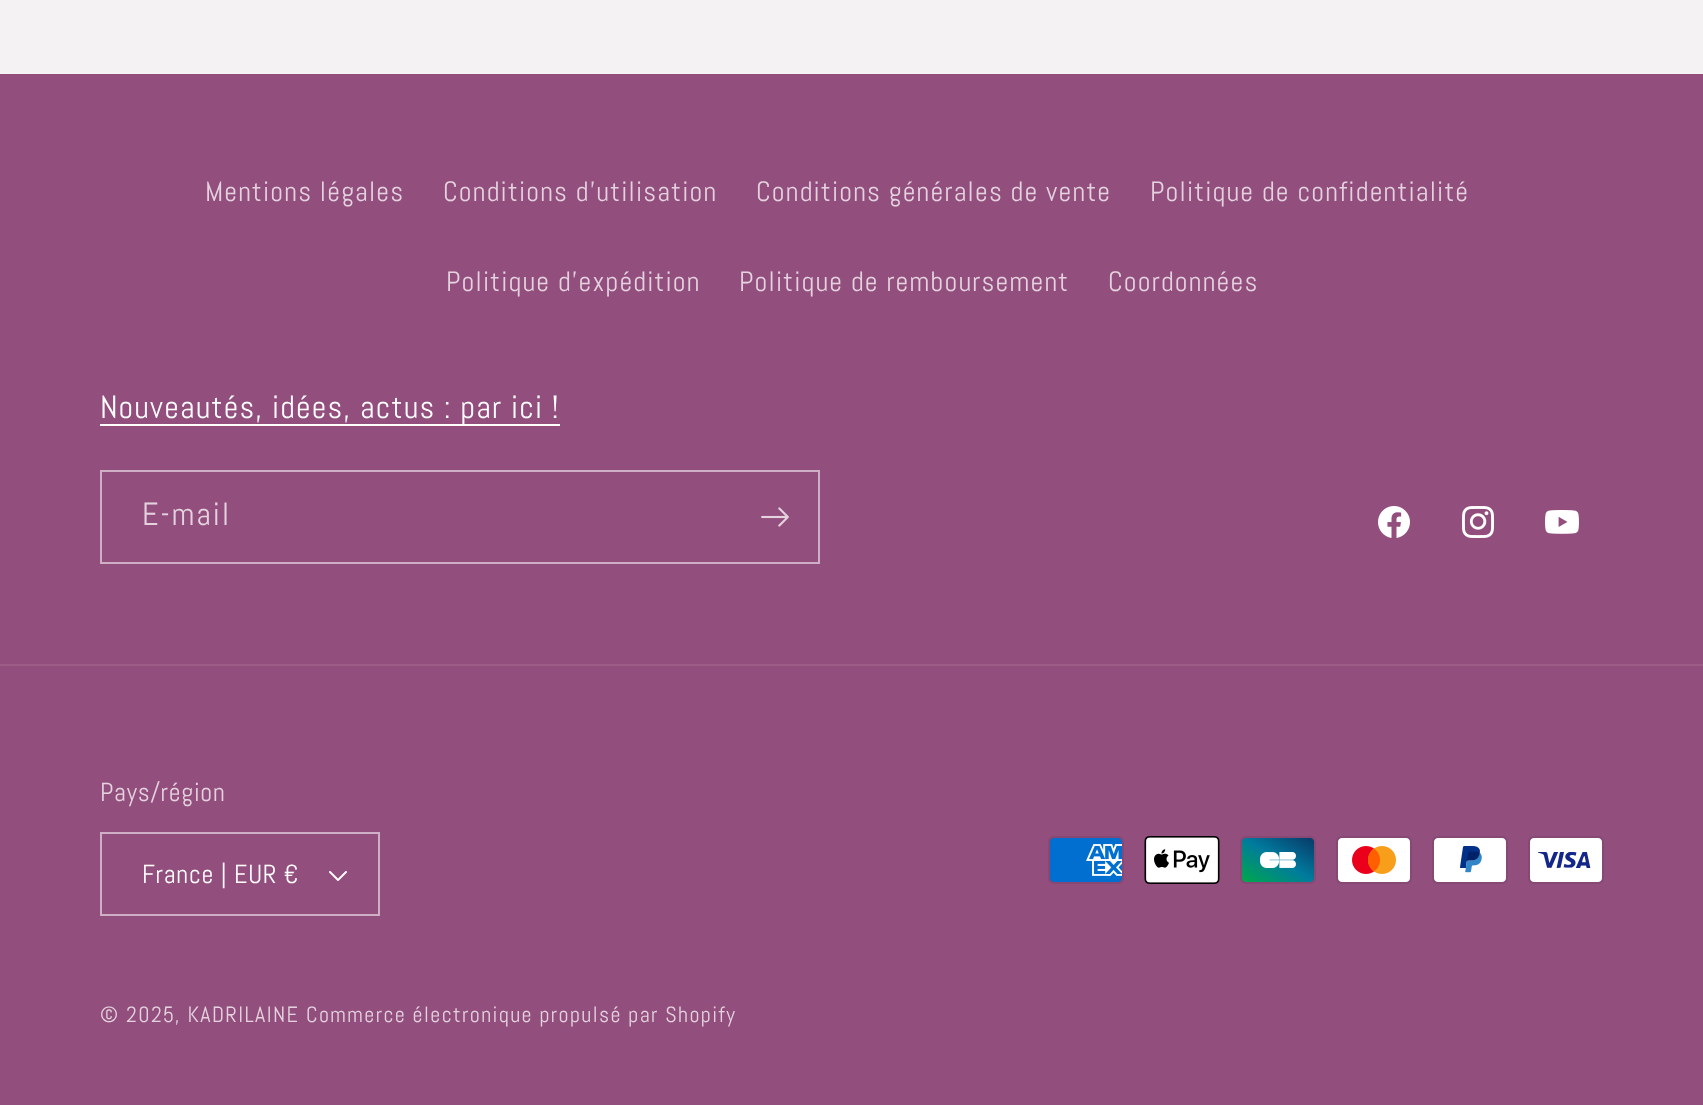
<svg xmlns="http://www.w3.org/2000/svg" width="1703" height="1105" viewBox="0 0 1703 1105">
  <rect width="100%" height="100%" fill="#f4f2f3"/>
  <rect x="0" y="74" width="1703" height="1031" fill="#924e7d"/>
  <text x="205" y="201" font-family="Abel" font-size="28" letter-spacing="1.2" fill="#e4d3df">Mentions légales</text>
  <text x="443" y="201" font-family="Abel" font-size="28" letter-spacing="1.2" fill="#e4d3df">Conditions d'utilisation</text>
  <text x="756" y="201" font-family="Abel" font-size="28" letter-spacing="1.2" fill="#e4d3df">Conditions générales de vente</text>
  <text x="1150" y="201" font-family="Abel" font-size="28" letter-spacing="1.2" fill="#e4d3df">Politique de confidentialité</text>
  <text x="446" y="291" font-family="Abel" font-size="28" letter-spacing="1.2" fill="#e4d3df">Politique d'expédition</text>
  <text x="739" y="291" font-family="Abel" font-size="28" letter-spacing="1.2" fill="#e4d3df">Politique de remboursement</text>
  <text x="1108" y="291" font-family="Abel" font-size="28" letter-spacing="1.2" fill="#e4d3df">Coordonnées</text>
  <rect x="100" y="424" width="460" height="2" fill="#ffffff"/>
  <text x="100" y="418" font-family="Abel" font-size="32" letter-spacing="1.2" fill="#ffffff">Nouveautés, idées, actus : par ici !</text>
  <rect x="101" y="471" width="718" height="92" fill="none" stroke="#ceafc5" stroke-width="2"/>
  <text x="142" y="525" font-family="Abel" font-size="32" letter-spacing="2" fill="#e4d3df">E-mail</text>
  <image x="761" y="507" width="28" height="20" href="img1.png"/>
  <image x="1378" y="506" width="32" height="32" href="img2.png"/>
  <image x="1462" y="506" width="32" height="32" href="img3.png"/>
  <image x="1545" y="510" width="34" height="24" href="img4.png"/>
  <rect x="0" y="664" width="1703" height="2" fill="#9b5c87"/>
  <text x="100" y="801" font-family="Abel" font-size="26" letter-spacing="0.75" fill="#e4d3df">Pays/région</text>
  <image x="329" y="871" width="18" height="10" href="img5.png"/>
  <rect x="101" y="833" width="278" height="82" fill="none" stroke="#ceafc5" stroke-width="2"/>
  <text x="142" y="883" font-family="Abel" font-size="26" letter-spacing="0.75" fill="#ffffff">France | EUR €</text>
  <image x="1048" y="836" width="76" height="48" href="img6.png"/>
  <image x="1144" y="836" width="76" height="48" href="img7.png"/>
  <image x="1240" y="836" width="76" height="48" href="img8.png"/>
  <image x="1336" y="836" width="76" height="48" href="img9.png"/>
  <image x="1432" y="836" width="76" height="48" href="img10.png"/>
  <image x="1528" y="836" width="76" height="48" href="img11.png"/>
  <text x="100" y="1022" font-family="Abel" font-size="22" letter-spacing="1.4" fill="#e4d3df">© 2025, KADRILAINE</text>
  <text x="306" y="1022" font-family="Abel" font-size="22" letter-spacing="1.4" fill="#e4d3df">Commerce électronique propulsé par Shopify</text>
</svg>
